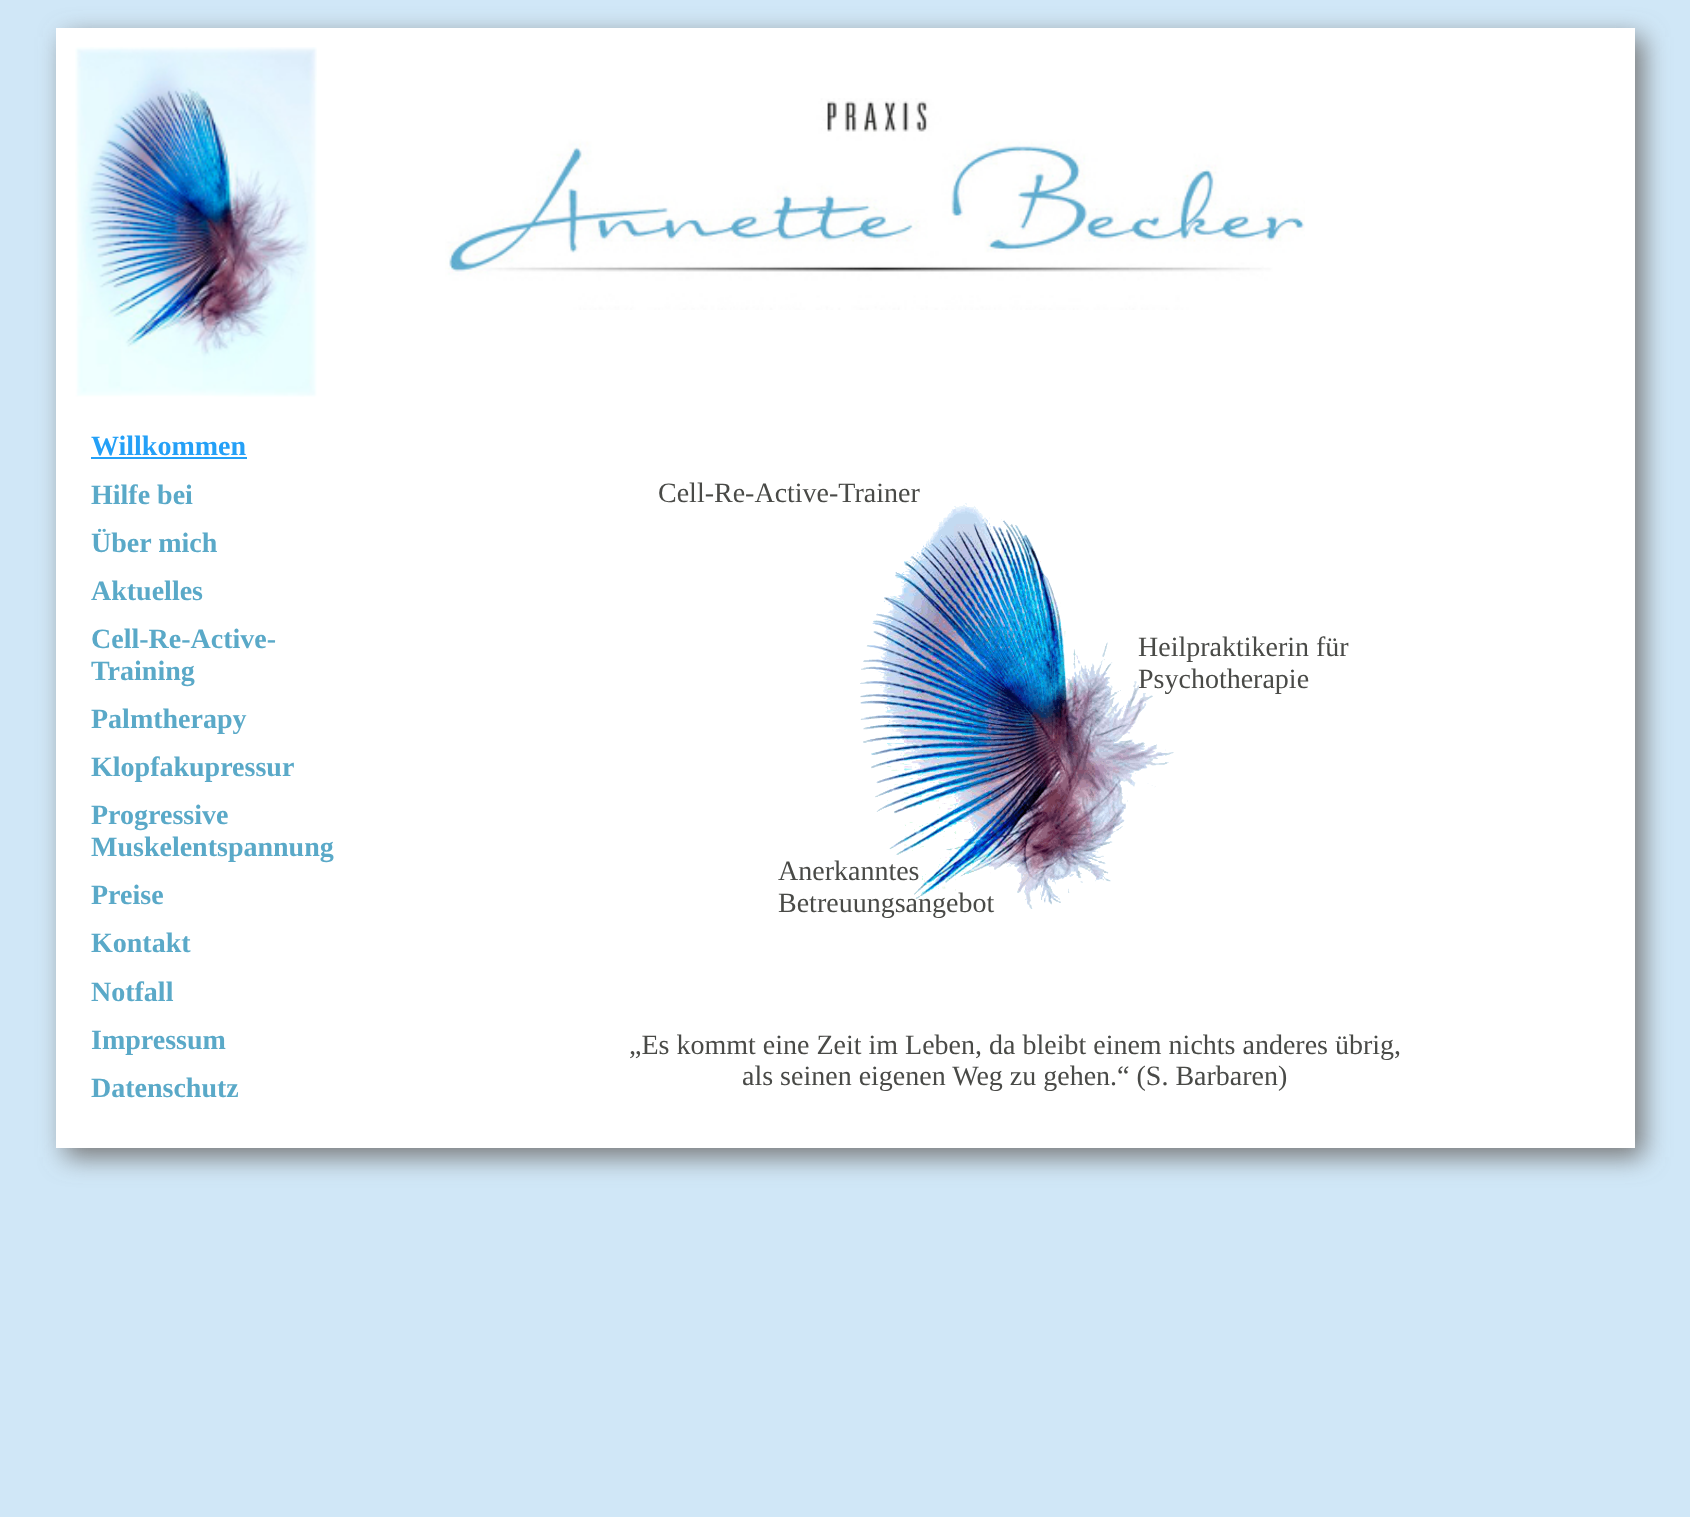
<svg xmlns="http://www.w3.org/2000/svg" width="1690" height="1517" viewBox="0 0 1690 1517">
  <defs>
    <filter id="blur1" x="-50%" y="-200%" width="200%" height="500%"><feGaussianBlur stdDeviation="13"/></filter>
  </defs>
  <rect width="100%" height="100%" fill="#d0e7f7"/>
  <rect x="65" y="37" width="1578" height="1120" fill="#777777" filter="url(#blur1)"/>
  <rect x="56" y="28" width="1579" height="1120" fill="#ffffff"/>
  <image x="75" y="47" width="242" height="350" href="img1.png"/>
  <image x="445" y="98" width="860" height="212" href="img2.png"/>
  <text x="91" y="455" font-family="Liberation Serif" font-size="28" font-weight="bold" fill="#24a0f7">Willkommen</text>
  <rect x="91" y="457" width="156" height="2" fill="#24a0f7"/>
  <text x="91" y="504" font-family="Liberation Serif" font-size="28" font-weight="bold" fill="#5aa9c8">Hilfe bei</text>
  <text x="91" y="552" font-family="Liberation Serif" font-size="28" font-weight="bold" fill="#5aa9c8">Über mich</text>
  <text x="91" y="600" font-family="Liberation Serif" font-size="28" font-weight="bold" fill="#5aa9c8">Aktuelles</text>
  <text x="91" y="648" font-family="Liberation Serif" font-size="28" font-weight="bold" fill="#5aa9c8">Cell-Re-Active-</text>
  <text x="91" y="680" font-family="Liberation Serif" font-size="28" font-weight="bold" fill="#5aa9c8">Training</text>
  <text x="91" y="728" font-family="Liberation Serif" font-size="28" font-weight="bold" fill="#5aa9c8">Palmtherapy</text>
  <text x="91" y="776" font-family="Liberation Serif" font-size="28" font-weight="bold" fill="#5aa9c8">Klopfakupressur</text>
  <text x="91" y="824" font-family="Liberation Serif" font-size="28" font-weight="bold" fill="#5aa9c8">Progressive</text>
  <text x="91" y="856" font-family="Liberation Serif" font-size="28" font-weight="bold" fill="#5aa9c8">Muskelentspannung</text>
  <text x="91" y="904" font-family="Liberation Serif" font-size="28" font-weight="bold" fill="#5aa9c8">Preise</text>
  <text x="91" y="952" font-family="Liberation Serif" font-size="28" font-weight="bold" fill="#5aa9c8">Kontakt</text>
  <text x="91" y="1001" font-family="Liberation Serif" font-size="28" font-weight="bold" fill="#5aa9c8">Notfall</text>
  <text x="91" y="1049" font-family="Liberation Serif" font-size="28" font-weight="bold" fill="#5aa9c8">Impressum</text>
  <text x="91" y="1097" font-family="Liberation Serif" font-size="28" font-weight="bold" fill="#5aa9c8">Datenschutz</text>
  <image x="860" y="503" width="314" height="406" href="img3.png"/>
  <text x="658" y="502" font-family="Liberation Serif" font-size="28" fill="#494a47">Cell-Re-Active-Trainer</text>
  <text x="1138" y="656" font-family="Liberation Serif" font-size="28" fill="#494a47">Heilpraktikerin für</text>
  <text x="1138" y="688" font-family="Liberation Serif" font-size="28" fill="#494a47">Psychotherapie</text>
  <text x="778" y="880" font-family="Liberation Serif" font-size="28" fill="#494a47">Anerkanntes</text>
  <text x="778" y="912" font-family="Liberation Serif" font-size="28" fill="#494a47">Betreuungsangebot</text>
  <text x="629" y="1054" font-family="Liberation Serif" font-size="28" fill="#494a47">„Es kommt eine Zeit im Leben, da bleibt einem nichts anderes übrig,</text>
  <text x="742" y="1085" font-family="Liberation Serif" font-size="28" fill="#494a47">als seinen eigenen Weg zu gehen.“ (S. Barbaren)</text>
</svg>
